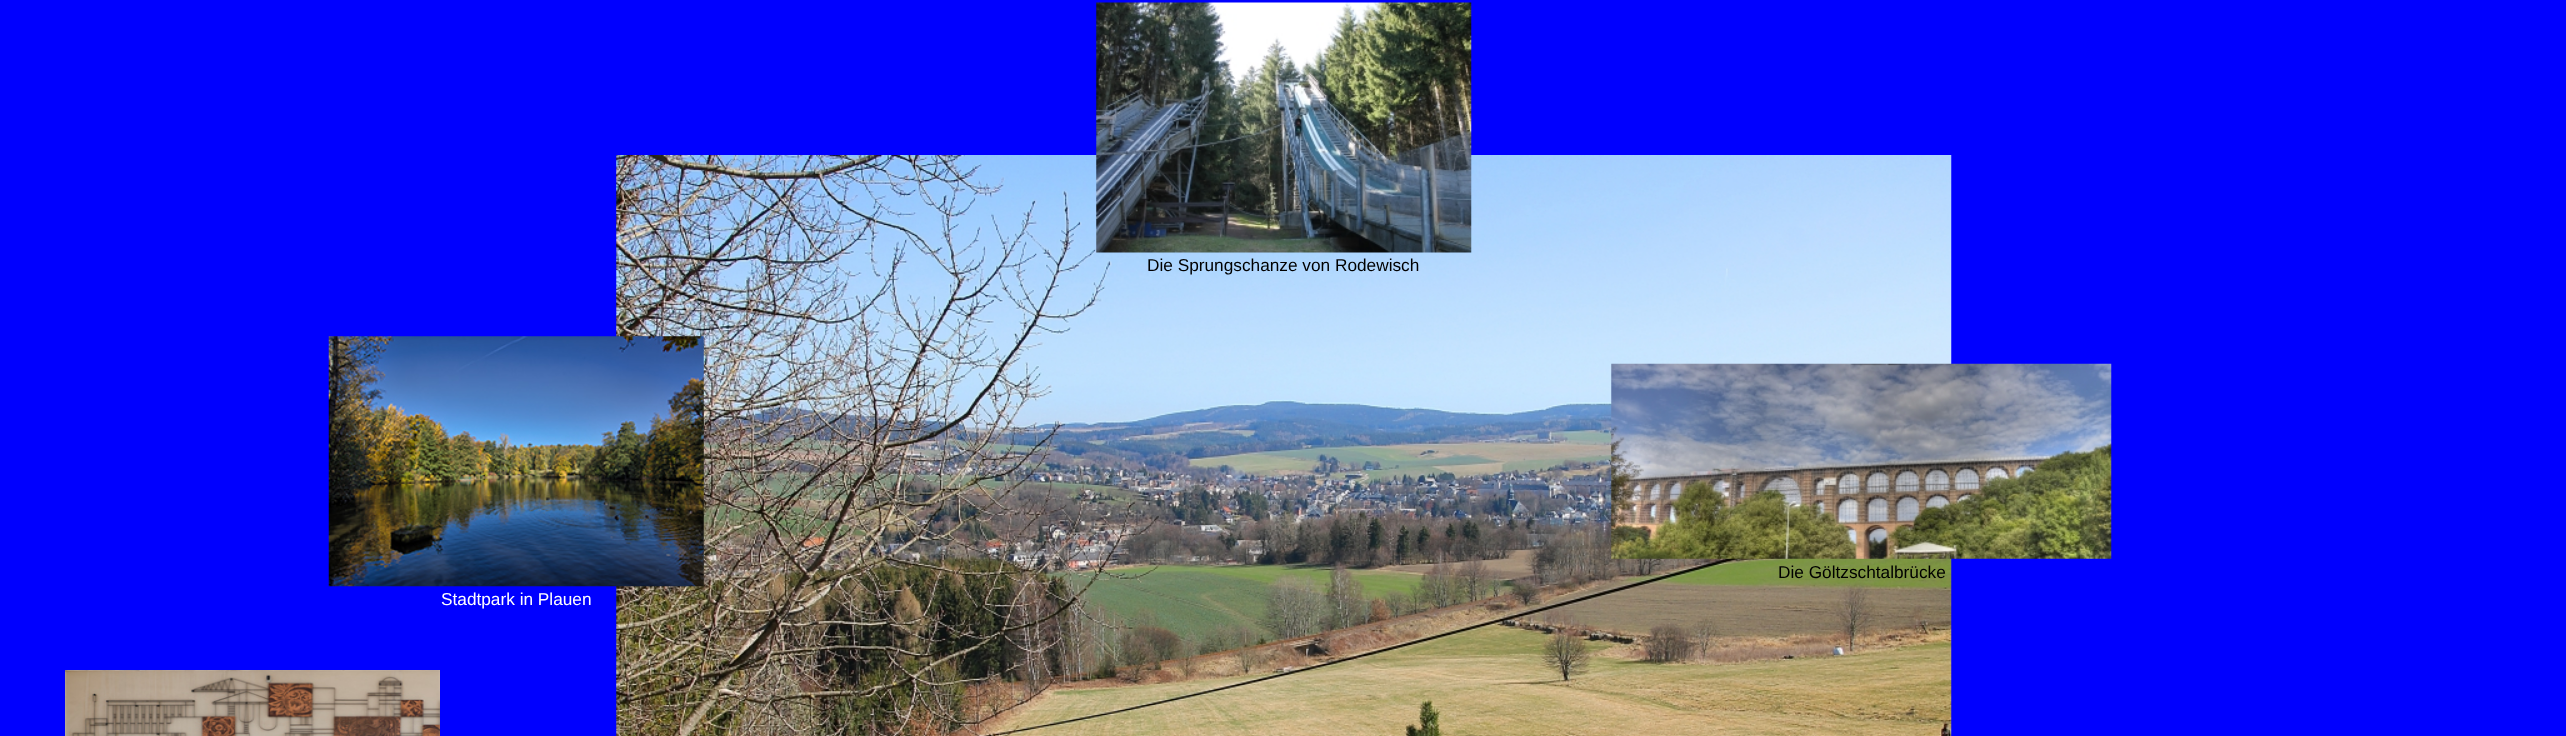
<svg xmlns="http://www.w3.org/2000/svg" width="2566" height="736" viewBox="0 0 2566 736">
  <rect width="100%" height="100%" fill="#0000ff"/>
  <image x="616" y="155" width="1336" height="581" href="img1.png"/>
  <image x="1096" y="2" width="376" height="251" href="img2.png"/>
  <text x="1147" y="271" font-family="Liberation Sans" font-size="17.25" fill="#000000">Die Sprungschanze von Rodewisch</text>
  <image x="1611" y="363" width="501" height="196" href="img3.png"/>
  <text x="1778" y="578" font-family="Liberation Sans" font-size="17.25" fill="#000000">Die Göltzschtalbrücke</text>
  <image x="328" y="336" width="376" height="251" href="img4.png"/>
  <text x="441" y="605" font-family="Liberation Sans" font-size="17.25" fill="#ffffff">Stadtpark in Plauen</text>
  <image x="65" y="670" width="375" height="66" href="img5.png"/>
</svg>
